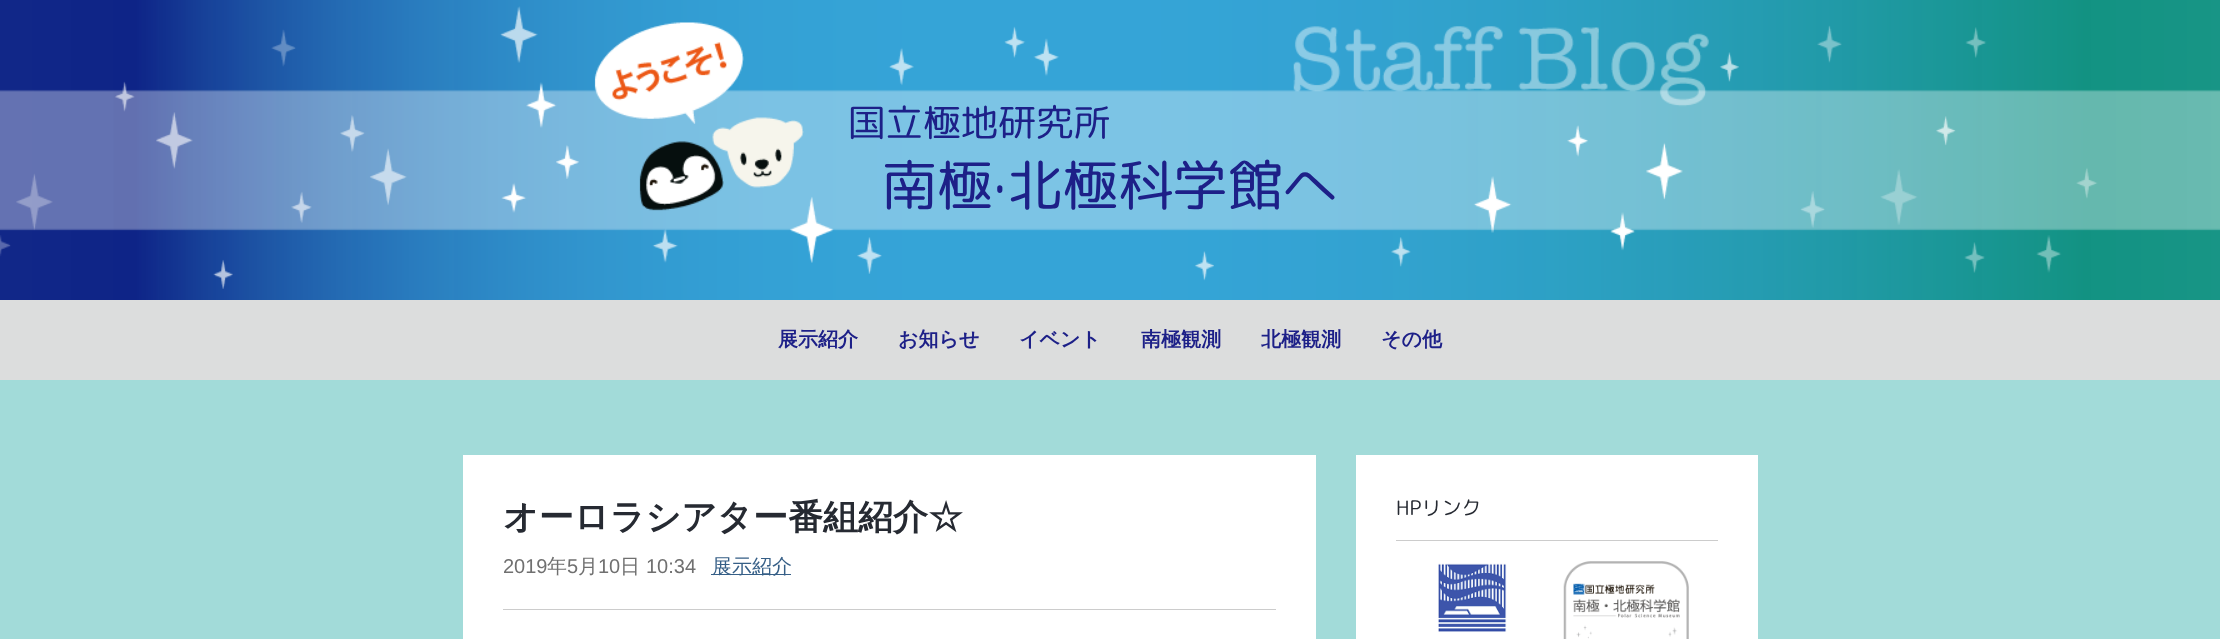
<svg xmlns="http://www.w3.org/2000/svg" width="2220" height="639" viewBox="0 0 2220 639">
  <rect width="100%" height="100%" fill="#a2dbd9"/>
  <image x="0" y="0" width="2220" height="300" href="img1.png"/>
  <text x="848" y="136" font-family="'Rounded Mplus 1c'" font-size="37.5" fill="#1d2088">国立極地研究所</text>
  <text x="882" y="205" font-family="'Rounded Mplus 1c'" font-size="55" fill="#1d2088">南極·北極科学館へ</text>
  <rect x="0" y="300" width="2220" height="80" fill="#dcdddd"/>
  <text x="778" y="346" font-family="WenQuanYi Zen Hei" font-size="20" font-weight="bold" fill="#1d2088">展示紹介</text>
  <text x="898" y="346" font-family="WenQuanYi Zen Hei" font-size="20" font-weight="bold" fill="#1d2088">お知らせ</text>
  <text x="1019" y="346" font-family="WenQuanYi Zen Hei" font-size="20" font-weight="bold" fill="#1d2088">イベント</text>
  <text x="1141" y="346" font-family="WenQuanYi Zen Hei" font-size="20" font-weight="bold" fill="#1d2088">南極観測</text>
  <text x="1261" y="346" font-family="WenQuanYi Zen Hei" font-size="20" font-weight="bold" fill="#1d2088">北極観測</text>
  <text x="1381" y="346" font-family="WenQuanYi Zen Hei" font-size="20" font-weight="bold" fill="#1d2088">その他</text>
  <rect x="463" y="455" width="853" height="184" fill="#ffffff"/>
  <rect x="503" y="609" width="773" height="1" fill="#cccccc"/>
  <text x="503" y="529" font-family="WenQuanYi Zen Hei" font-size="35" font-weight="bold" fill="#262a32">オーロラシアター番組紹介☆</text>
  <text x="503" y="573" font-family="Liberation Sans" font-size="20" fill="#707070">2019</text>
  <text x="547" y="573" font-family="WenQuanYi Zen Hei" font-size="20" font-weight="500" fill="#707070">年</text>
  <text x="567" y="573" font-family="Liberation Sans" font-size="20" fill="#707070">5</text>
  <text x="578" y="573" font-family="WenQuanYi Zen Hei" font-size="20" font-weight="500" fill="#707070">月</text>
  <text x="598" y="573" font-family="Liberation Sans" font-size="20" fill="#707070">10</text>
  <text x="620" y="573" font-family="WenQuanYi Zen Hei" font-size="20" font-weight="500" fill="#707070">日</text>
  <text x="646" y="573" font-family="Liberation Sans" font-size="20" fill="#707070">10:34</text>
  <rect x="711" y="574" width="80" height="1" fill="#365f87"/>
  <text x="712" y="573" font-family="WenQuanYi Zen Hei" font-size="20" font-weight="500" fill="#365f87">展示紹介</text>
  <rect x="1356" y="455" width="402" height="184" fill="#ffffff"/>
  <rect x="1396" y="540" width="322" height="1" fill="#cccccc"/>
  <text x="1396" y="515" font-family="'Rounded Mplus 1c'" font-size="20" fill="#262a32">HPリンク</text>
  <image x="1438" y="563" width="69" height="69" href="img2.png"/>
  <image x="1563" y="561" width="126" height="78" href="img3.png"/>
</svg>
